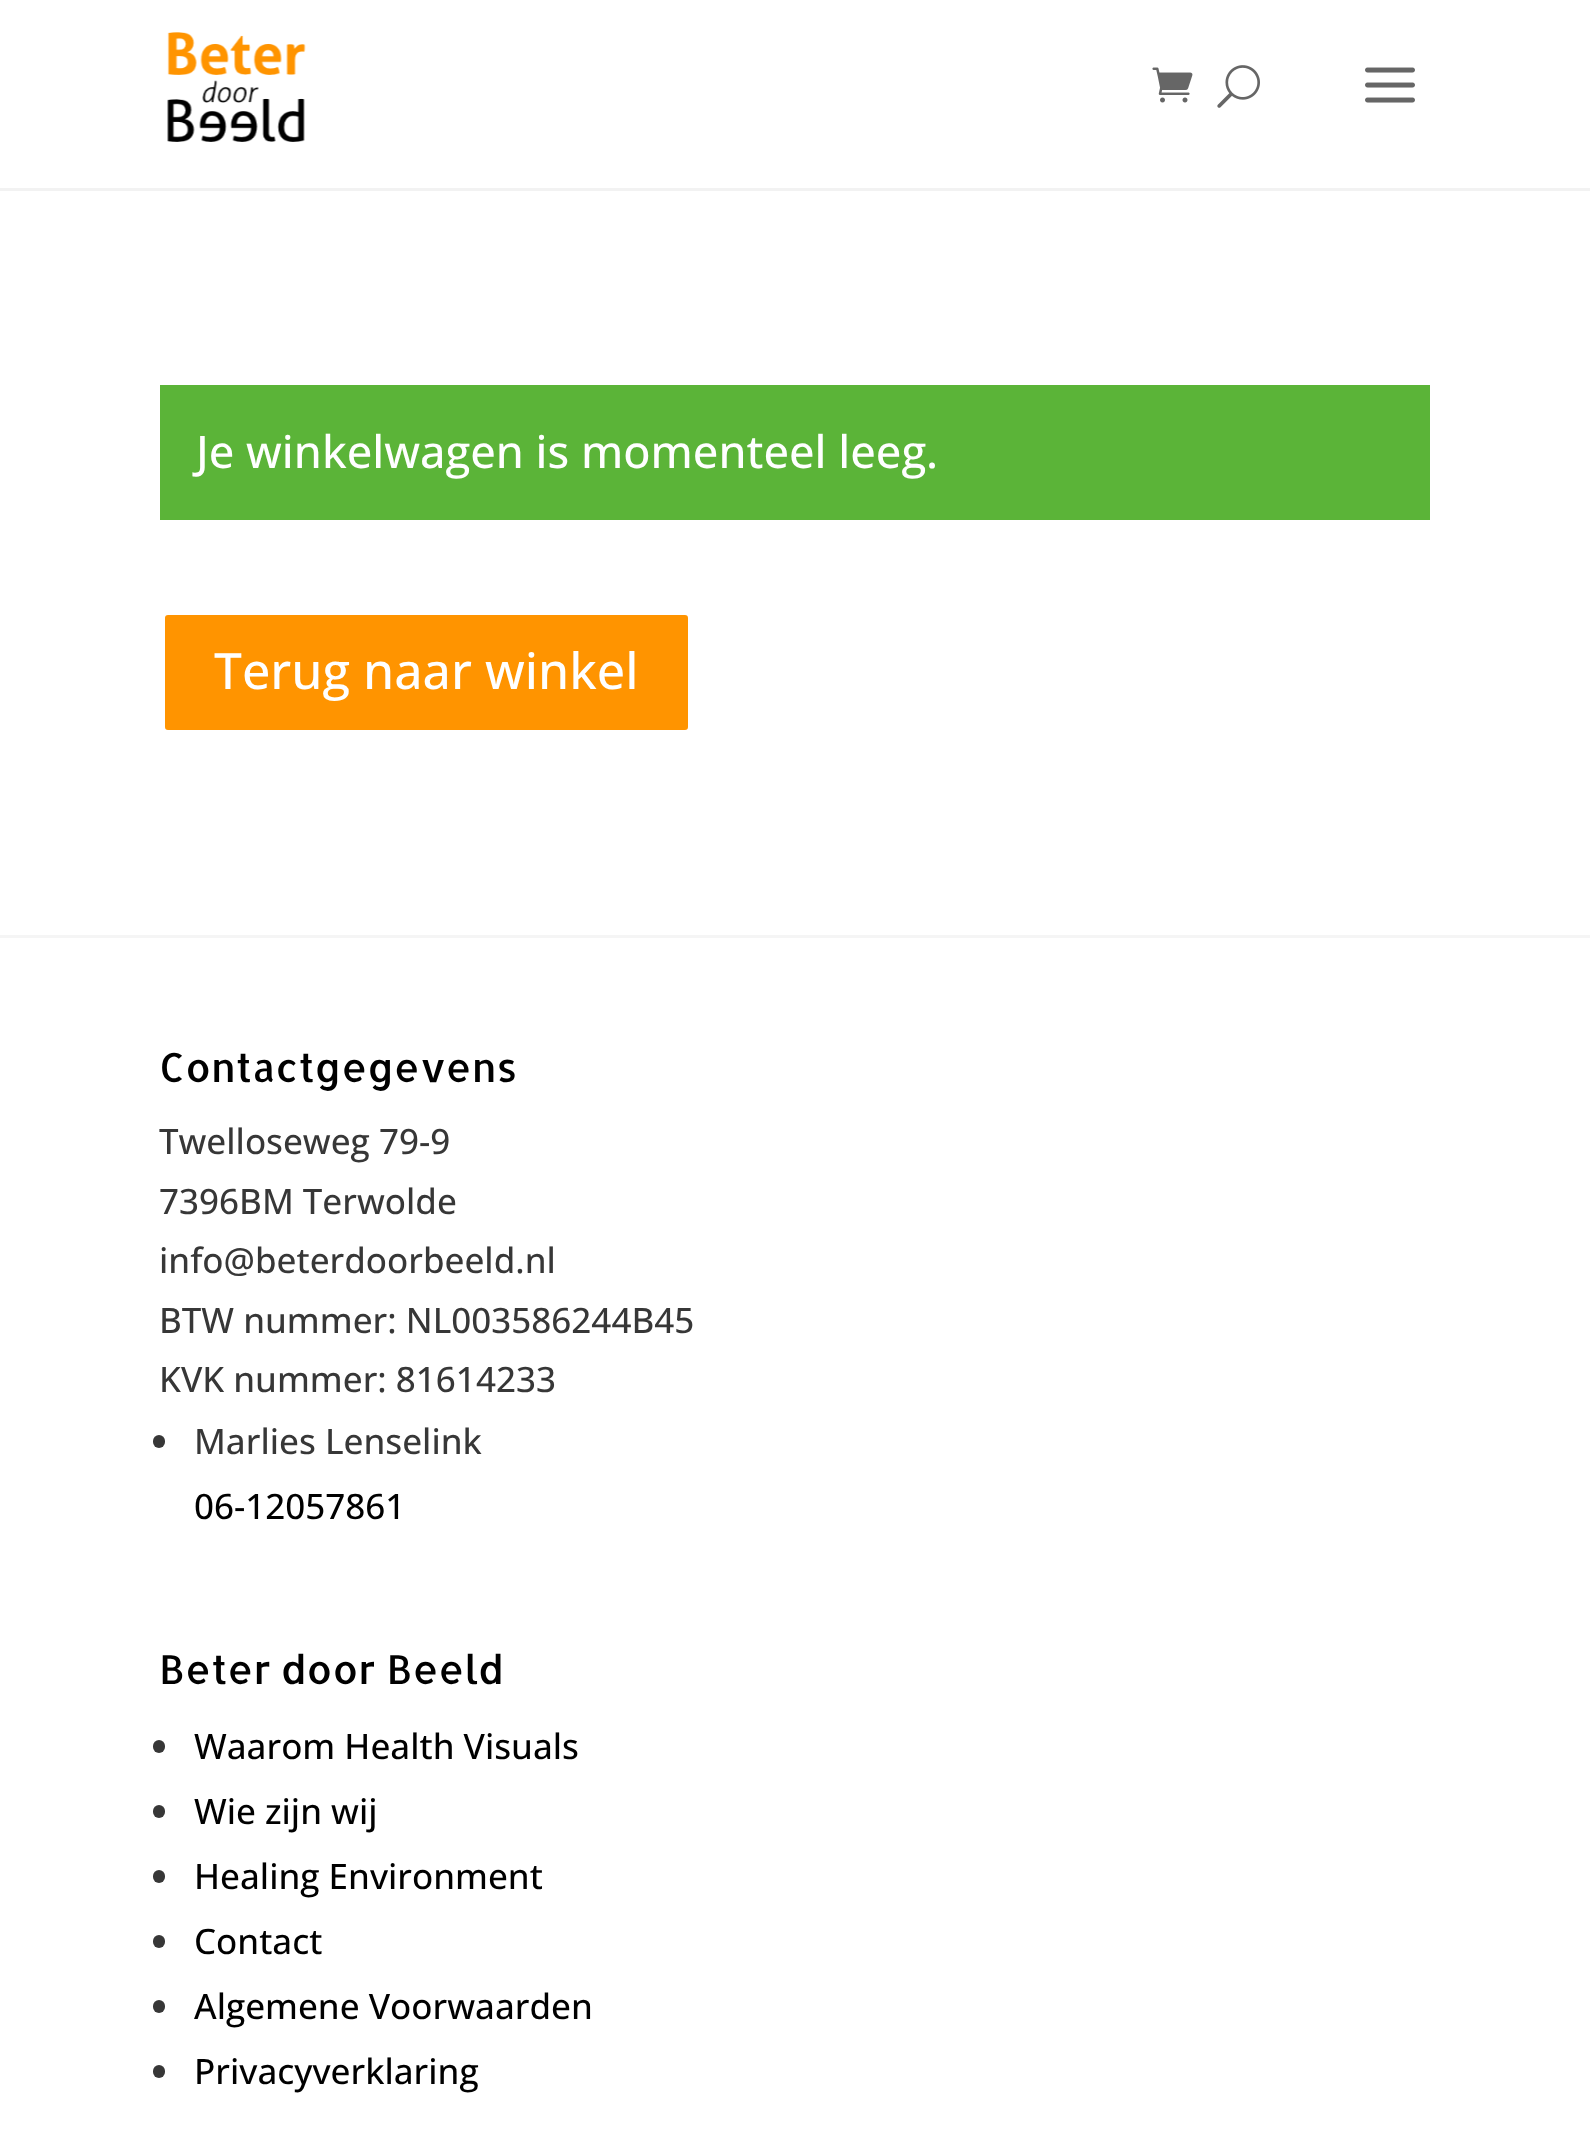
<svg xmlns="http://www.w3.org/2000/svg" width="1590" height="2132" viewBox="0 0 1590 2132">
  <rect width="100%" height="100%" fill="#ffffff"/>
  <rect x="0" y="188" width="1590" height="3" fill="#f2f2f2"/>
  <image x="167" y="32" width="139" height="110" href="img1.png"/>
  <image x="1152" y="67" width="41" height="36" href="img2.png"/>
  <image x="1217" y="65" width="43" height="43" href="img3.png"/>
  <image x="1365" y="67" width="50" height="36" href="img4.png"/>
  <rect x="160" y="385" width="1270" height="135" fill="#5bb438"/>
  <text x="196" y="468" font-family="Open Sans" font-size="45" font-weight="500" fill="#ffffff">Je winkelwagen is momenteel leeg.</text>
  <rect x="162.5" y="612.5" width="528" height="120" rx="5.5" fill="#ff9400" stroke="#ffffff" stroke-width="5"/>
  <text x="214" y="689" font-family="Open Sans" font-size="50" font-weight="500" fill="#ffffff">Terug naar winkel</text>
  <rect x="0" y="935" width="1590" height="3" fill="#f5f5f5"/>
  <text x="159" y="1082" font-family="Allerta" font-size="40" fill="#000000">Contactgegevens</text>
  <text x="159" y="1154" font-family="Open Sans" font-size="35" font-weight="500" fill="#373737">Twelloseweg 79-9</text>
  <text x="159" y="1214" font-family="Open Sans" font-size="35" font-weight="500" fill="#373737">7396BM Terwolde</text>
  <text x="159" y="1273" font-family="Open Sans" font-size="35" font-weight="500" fill="#373737">info@beterdoorbeeld.nl</text>
  <text x="159" y="1333" font-family="Open Sans" font-size="35" font-weight="500" fill="#373737">BTW nummer: NL003586244B45</text>
  <text x="159" y="1392" font-family="Open Sans" font-size="35" font-weight="500" fill="#373737">KVK nummer: 81614233</text>
  <rect x="153" y="1435" width="12" height="13" rx="6" fill="#373737"/>
  <text x="194" y="1454" font-family="Open Sans" font-size="35" font-weight="500" fill="#373737">Marlies Lenselink</text>
  <text x="194" y="1519" font-family="Open Sans" font-size="35" font-weight="500" fill="#000000">06-12057861</text>
  <text x="159" y="1684" font-family="Allerta" font-size="40" fill="#000000">Beter door Beeld</text>
  <rect x="153" y="1740" width="12" height="13" rx="6" fill="#373737"/>
  <text x="194" y="1759" font-family="Open Sans" font-size="35" font-weight="500" fill="#000000">Waarom Health Visuals</text>
  <rect x="153" y="1805" width="12" height="13" rx="6" fill="#373737"/>
  <text x="194" y="1824" font-family="Open Sans" font-size="35" font-weight="500" fill="#000000">Wie zijn wij</text>
  <rect x="153" y="1870" width="12" height="13" rx="6" fill="#373737"/>
  <text x="194" y="1889" font-family="Open Sans" font-size="35" font-weight="500" fill="#000000">Healing Environment</text>
  <rect x="153" y="1935" width="12" height="13" rx="6" fill="#373737"/>
  <text x="194" y="1954" font-family="Open Sans" font-size="35" font-weight="500" fill="#000000">Contact</text>
  <rect x="153" y="2000" width="12" height="13" rx="6" fill="#373737"/>
  <text x="194" y="2019" font-family="Open Sans" font-size="35" font-weight="500" fill="#000000">Algemene Voorwaarden</text>
  <rect x="153" y="2065" width="12" height="13" rx="6" fill="#373737"/>
  <text x="194" y="2084" font-family="Open Sans" font-size="35" font-weight="500" fill="#000000">Privacyverklaring</text>
</svg>
